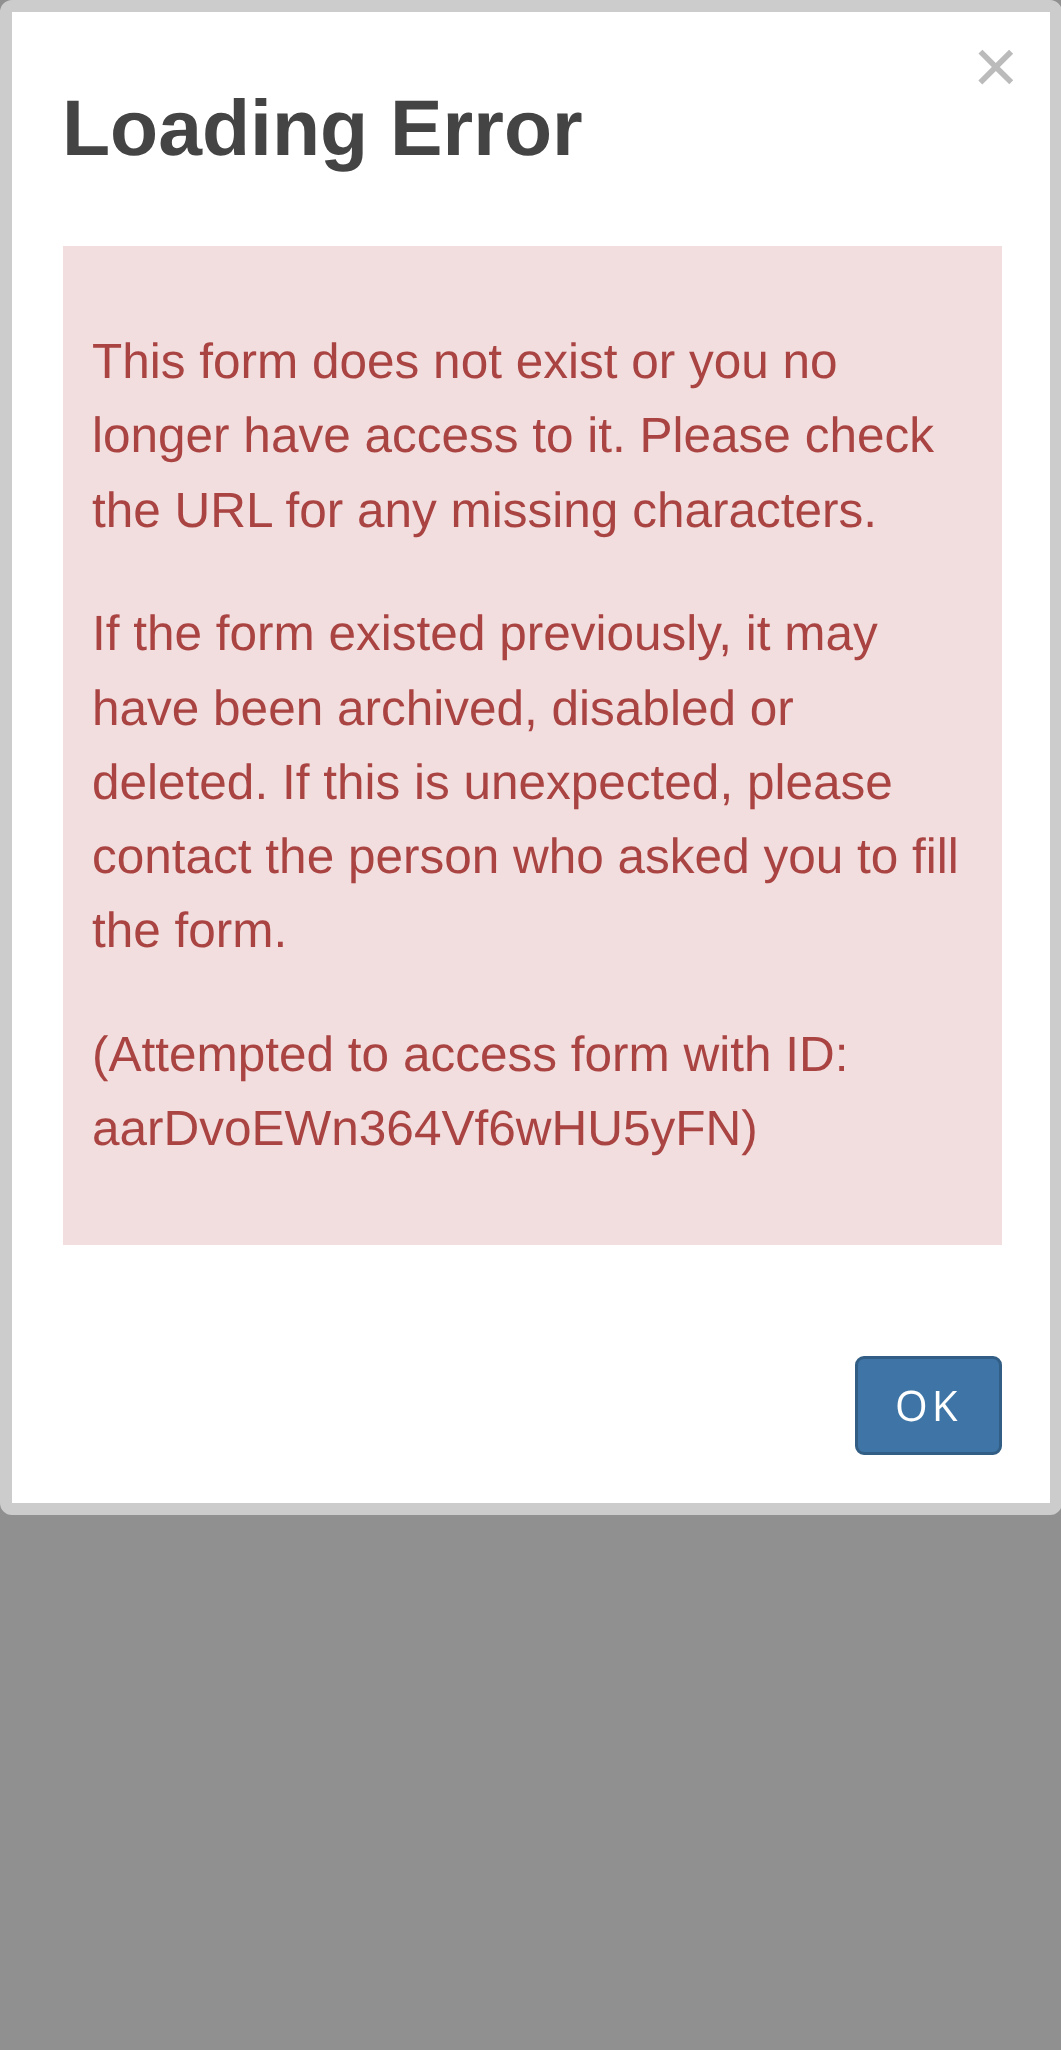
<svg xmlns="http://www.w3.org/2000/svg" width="1061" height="2050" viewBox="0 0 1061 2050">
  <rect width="100%" height="100%" fill="#909090"/>
  <rect x="6" y="6" width="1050" height="1503" rx="6" fill="#ffffff" stroke="#cccccc" stroke-width="12"/>
  <text x="973" y="93" font-family="Liberation Sans" font-size="78" fill="#bbbbbb">×</text>
  <text x="62" y="155" font-family="Liberation Sans" font-size="78.75" font-weight="bold" fill="#444444">Loading Error</text>
  <rect x="63" y="246" width="939" height="999" fill="#f2dede"/>
  <text x="92" y="378" font-family="Liberation Sans" font-size="49.5" fill="#a94442">This form does not exist or you no</text>
  <text x="92" y="452" font-family="Liberation Sans" font-size="49.5" fill="#a94442">longer have access to it. Please check</text>
  <text x="92" y="527" font-family="Liberation Sans" font-size="49.5" fill="#a94442">the URL for any missing characters.</text>
  <text x="92" y="650" font-family="Liberation Sans" font-size="49.5" fill="#a94442">If the form existed previously, it may</text>
  <text x="92" y="725" font-family="Liberation Sans" font-size="49.5" fill="#a94442">have been archived, disabled or</text>
  <text x="92" y="799" font-family="Liberation Sans" font-size="49.5" fill="#a94442">deleted. If this is unexpected, please</text>
  <text x="92" y="873" font-family="Liberation Sans" font-size="49.5" fill="#a94442">contact the person who asked you to fill</text>
  <text x="92" y="947" font-family="Liberation Sans" font-size="49.5" fill="#a94442">the form.</text>
  <text x="92" y="1071" font-family="Liberation Sans" font-size="49.5" fill="#a94442">(Attempted to access form with ID:</text>
  <text x="92" y="1145" font-family="Liberation Sans" font-size="49.5" fill="#a94442">aarDvoEWn364Vf6wHU5yFN)</text>
  <rect x="856.5" y="1357.5" width="144" height="96" rx="7.5" fill="#3e75a6" stroke="#325e85" stroke-width="3"/>
  <text x="895" y="1421" font-family="Open Sans" font-size="42" letter-spacing="4" fill="#ffffff">OK</text>
</svg>
